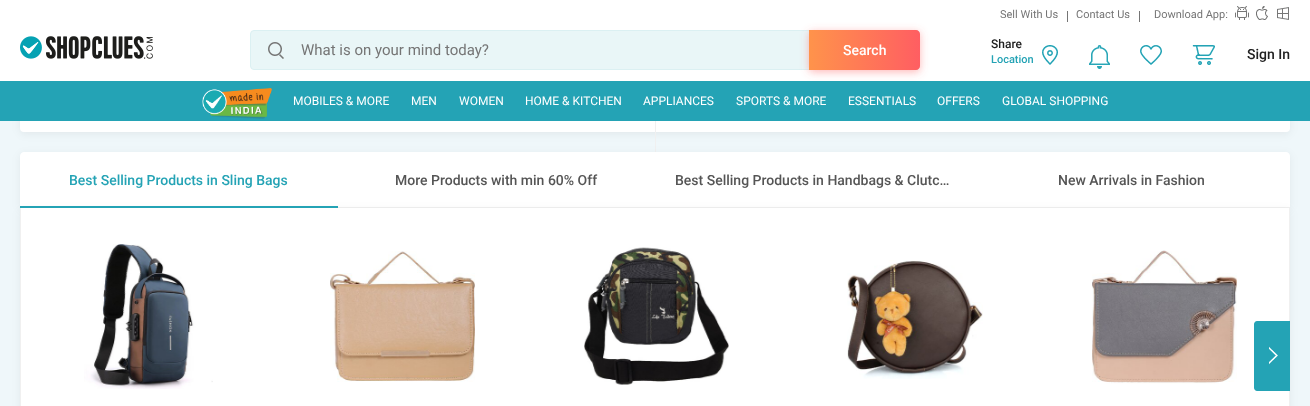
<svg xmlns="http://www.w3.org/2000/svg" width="1310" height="406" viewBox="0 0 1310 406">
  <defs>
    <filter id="blur1" x="-50%" y="-200%" width="200%" height="500%"><feGaussianBlur stdDeviation="4"/></filter>
    <linearGradient id="g1" gradientUnits="userSpaceOnUse" x1="809" y1="50" x2="920" y2="50"><stop offset="0" stop-color="#ff934b"/><stop offset="1" stop-color="#ff5e62"/></linearGradient>
  </defs>
  <rect width="100%" height="100%" fill="#eff7fa"/>
  <rect x="20" y="-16" width="1270" height="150" rx="4" fill="#000000" fill-opacity="0.06" filter="url(#blur1)"/>
  <rect x="20" y="-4" width="1270" height="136" rx="4" fill="#ffffff"/>
  <rect x="0" y="0" width="1310" height="81" fill="#ffffff"/>
  <text x="1000" y="18" font-family="Roboto" font-size="11" fill="#757575">Sell With Us</text>
  <rect x="1067" y="11" width="1" height="11" fill="#757575"/>
  <text x="1076" y="18" font-family="Roboto" font-size="11" fill="#757575">Contact Us</text>
  <rect x="1139" y="11" width="1" height="11" fill="#757575"/>
  <text x="1154" y="18" font-family="Roboto" font-size="11" fill="#757575">Download App:</text>
  <image x="1235" y="6" width="14" height="14" href="img1.png"/>
  <image x="1256" y="6" width="12" height="14" href="img2.png"/>
  <image x="1277" y="7" width="12" height="13" href="img3.png"/>
  <image x="20" y="36" width="133" height="23" href="img4.png"/>
  <rect x="250.5" y="30.5" width="669" height="39" rx="3.5" fill="#e9f6f7" stroke="#dbf0f2"/>
  <image x="268" y="42" width="16" height="17" href="img5.png"/>
  <text x="301" y="55" font-family="Roboto" font-size="15" fill="#757575">What is on your mind today?</text>
  <rect x="0" y="81" width="1310" height="40" fill="#24a3b5"/>
  <rect x="809" y="32" width="111" height="40" rx="4" fill="#ff6162" fill-opacity="0.46" filter="url(#blur1)"/>
  <path d="M809 30H916C918 30 920 32 920 34V66C920 68 918 70 916 70H809Z" fill="url(#g1)"/>
  <text x="843" y="55" font-family="Roboto" font-size="14" font-weight="500" fill="#ffffff">Search</text>
  <text x="991" y="48" font-family="Roboto" font-size="12" font-weight="500" fill="#212121">Share</text>
  <text x="991" y="63" font-family="Roboto" font-size="11" font-weight="500" fill="#24a3b5">Location</text>
  <image x="1042" y="45" width="16" height="20" href="img6.png"/>
  <image x="1089" y="45" width="21" height="24" href="img7.png"/>
  <image x="1140" y="45" width="22" height="20" href="img8.png"/>
  <image x="1192" y="45" width="23" height="20" href="img9.png"/>
  <text x="1247" y="59" font-family="Roboto" font-size="14" font-weight="500" fill="#212121">Sign In</text>
  <image x="202" y="88" width="70" height="31" href="img10.png"/>
  <text x="293" y="105" font-family="Roboto" font-size="12" fill="#ffffff">MOBILES &amp; MORE</text>
  <text x="411" y="105" font-family="Roboto" font-size="12" fill="#ffffff">MEN</text>
  <text x="459" y="105" font-family="Roboto" font-size="12" fill="#ffffff">WOMEN</text>
  <text x="525" y="105" font-family="Roboto" font-size="12" fill="#ffffff">HOME &amp; KITCHEN</text>
  <text x="643" y="105" font-family="Roboto" font-size="12" fill="#ffffff">APPLIANCES</text>
  <text x="736" y="105" font-family="Roboto" font-size="12" fill="#ffffff">SPORTS &amp; MORE</text>
  <text x="848" y="105" font-family="Roboto" font-size="12" fill="#ffffff">ESSENTIALS</text>
  <text x="937" y="105" font-family="Roboto" font-size="12" fill="#ffffff">OFFERS</text>
  <text x="1002" y="105" font-family="Roboto" font-size="12" fill="#ffffff">GLOBAL SHOPPING</text>
  <rect x="655" y="121" width="1" height="32" fill="#f0f0f0"/>
  <rect x="20" y="154" width="1270" height="56" rx="4" fill="#000000" fill-opacity="0.06" filter="url(#blur1)"/>
  <path d="M24 152H1286C1288 152 1290 154 1290 156V208H20V156C20 154 22 152 24 152Z" fill="#ffffff"/>
  <text x="69" y="185" font-family="Roboto" font-size="14" font-weight="500" fill="#24a3b5">Best Selling Products in Sling Bags</text>
  <rect x="338" y="207" width="952" height="1" fill="#f0f0f0"/>
  <rect x="20" y="210" width="1270" height="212" rx="4" fill="#000000" fill-opacity="0.06" filter="url(#blur1)"/>
  <rect x="20" y="206" width="318" height="2" fill="#24a3b5"/>
  <text x="395" y="185" font-family="Roboto" font-size="14" font-weight="500" fill="#555555">More Products with min 60% Off</text>
  <text x="675" y="185" font-family="Roboto" font-size="14" font-weight="500" fill="#555555">Best Selling Products in Handbags &amp; Clutc…</text>
  <text x="1058" y="185" font-family="Roboto" font-size="14" font-weight="500" fill="#555555">New Arrivals in Fashion</text>
  <rect x="21" y="208" width="1268" height="198" fill="#ffffff"/>
  <path d="M20 208H1290V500C1290 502 1288 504 1286 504H24C22 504 20 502 20 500ZM21 208H1289V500C1289 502 1288 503 1286 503H24C22 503 21 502 21 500Z" fill="#f0f0f0" fill-rule="evenodd"/>
  <image x="84" y="244" width="129" height="145" href="img11.png"/>
  <image x="95" y="245" width="99" height="138" href="img12.png"/>
  <image x="330" y="251" width="145" height="131" href="img13.png"/>
  <image x="330" y="254" width="145" height="125" href="img14.png"/>
  <image x="584" y="247" width="145" height="138" href="img15.png"/>
  <image x="584" y="252" width="145" height="132" href="img16.png"/>
  <image x="847" y="260" width="136" height="119" href="img17.png"/>
  <image x="847" y="263" width="136" height="105" href="img18.png"/>
  <image x="1092" y="250" width="145" height="134" href="img19.png"/>
  <image x="1092" y="255" width="145" height="125" href="img20.png"/>
  <path d="M1257 321H1290V391H1257C1255.5 391 1254 389.5 1254 388V324C1254 322.5 1255.5 321 1257 321Z" fill="#24a3b5"/>
  <image x="1269" y="346" width="9" height="19" href="img21.png"/>
</svg>
